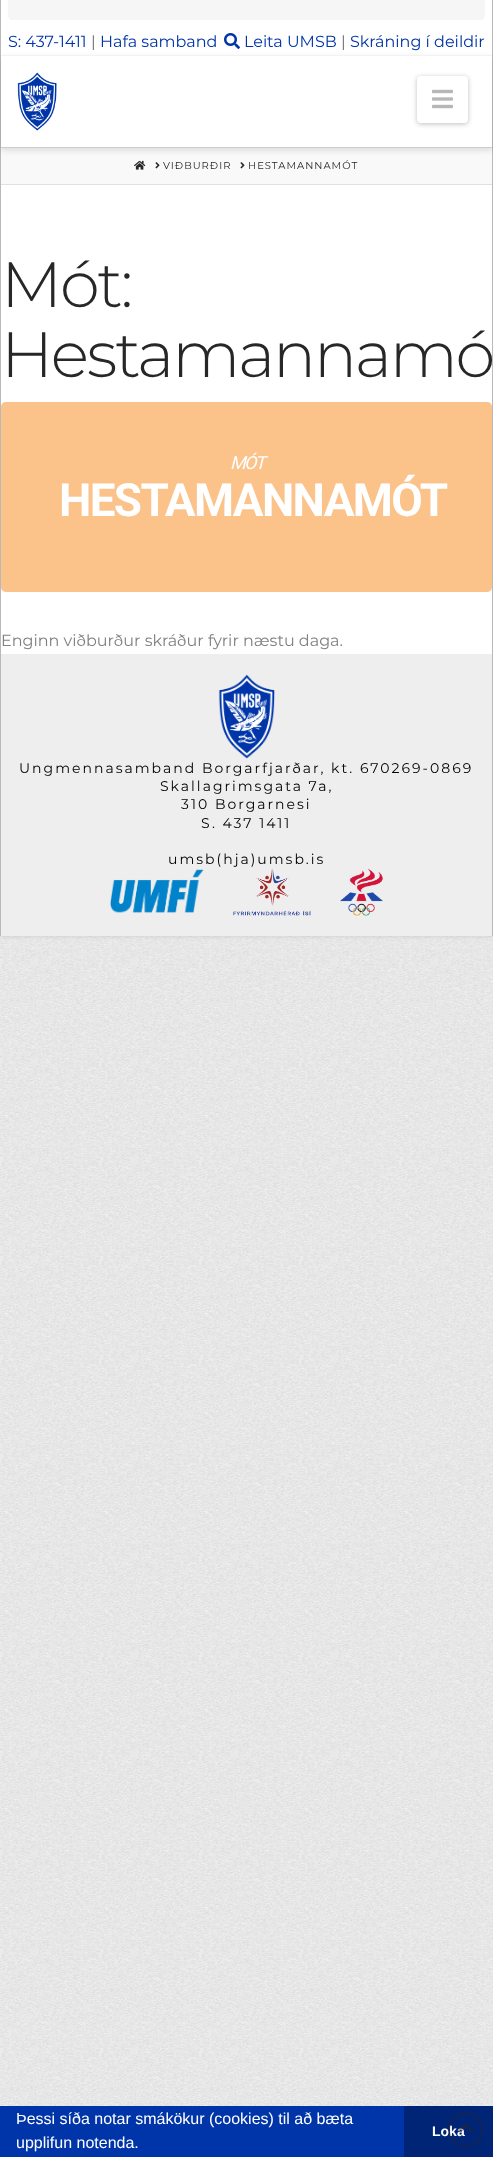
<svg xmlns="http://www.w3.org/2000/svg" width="493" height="2157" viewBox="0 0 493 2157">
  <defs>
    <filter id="blur1" x="-50%" y="-200%" width="200%" height="500%"><feGaussianBlur stdDeviation="2.5"/></filter>
    <clipPath id="clip1"><path d="M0 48H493V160H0ZM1 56H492V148H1Z" clip-rule="evenodd"/></clipPath>
    <filter id="blur2" x="-50%" y="-200%" width="200%" height="500%"><feGaussianBlur stdDeviation="3"/></filter>
  </defs>
  <rect width="100%" height="100%" fill="#ffffff"/>
  <image x="0" y="936" width="493" height="1170" href="img1.png"/>
  <rect x="0" y="0" width="493" height="936" fill="#000000" fill-opacity="0.12" filter="url(#blur1)"/>
  <rect x="1" y="0" width="491" height="654" fill="#ffffff"/>
  <rect x="492" y="0" width="1" height="936" fill="#b9b9b9"/>
  <rect x="0" y="0" width="1" height="936" fill="#b9b9b9"/>
  <rect x="1" y="148" width="491" height="36" fill="#f9f9f9"/>
  <g clip-path="url(#clip1)">
    <rect x="1" y="58" width="491" height="92" fill="#000000" fill-opacity="0.13" filter="url(#blur2)"/>
  </g>
  <rect x="1" y="55" width="491" height="1" fill="#f2f2f2"/>
  <path d="M8 0H485V16C485 18 483 20 481 20H12C10 20 8 18 8 16Z" fill="#f6f6f6"/>
  <text x="8" y="47" font-family="Montserrat" font-size="16" fill="#0035a9">S: 437-1411</text>
  <text x="91" y="47" font-family="Montserrat" font-size="16" fill="#6d6d6d">|</text>
  <text x="100" y="47" font-family="Montserrat" font-size="16" fill="#0035a9">Hafa samband</text>
  <image x="224" y="33" width="16" height="16" href="img2.png"/>
  <text x="244" y="47" font-family="Montserrat" font-size="16" fill="#0035a9">Leita UMSB</text>
  <text x="341" y="47" font-family="Montserrat" font-size="16" fill="#6d6d6d">|</text>
  <text x="350" y="47" font-family="Montserrat" font-size="16" fill="#0035a9">Skráning í deildir</text>
  <rect x="1" y="147" width="491" height="1" fill="#cccccc"/>
  <image x="17" y="72" width="40" height="59" href="img3.png"/>
  <rect x="417" y="77" width="51" height="47" rx="4" fill="#000000" fill-opacity="0.25" filter="url(#blur1)"/>
  <rect x="417" y="76" width="51" height="47" rx="4" fill="#ffffff"/>
  <image x="432" y="89" width="21" height="20" href="img4.png"/>
  <rect x="1" y="184" width="491" height="1" fill="#e0e0e0"/>
  <image x="134" y="160" width="12" height="10" href="img5.png"/>
  <image x="155" y="162" width="5" height="7" href="img6.png"/>
  <text x="163" y="169" font-family="Montserrat" font-size="10" letter-spacing="1" fill="#272727">VIÐBURÐIR</text>
  <image x="240" y="162" width="5" height="7" href="img6.png"/>
  <text x="248" y="169" font-family="Montserrat" font-size="10" letter-spacing="1" fill="#272727">HESTAMANNAMÓT</text>
  <text x="1" y="307" font-family="Montserrat" font-size="64" font-weight="300" letter-spacing="-2.25" fill="#272727">Mót:</text>
  <text x="1" y="377" font-family="Montserrat" font-size="64" font-weight="300" letter-spacing="-2.25" fill="#272727">Hestamannamó</text>
  <rect x="1" y="402" width="491" height="190" rx="5" fill="#dcdcdc"/>
  <rect x="1" y="402" width="491" height="190" rx="5" fill="#ffbf80" fill-opacity="0.89"/>
  <text x="230" y="469" font-family="Roboto" font-size="18" font-style="italic" letter-spacing="-1.6" fill="#ffffff">MÓT</text>
  <text x="59" y="516" font-family="Roboto" font-size="45.75" font-weight="bold" letter-spacing="-1.6" fill="#ffffff">HESTAMANNAMÓT</text>
  <text x="1" y="646" font-family="Montserrat" font-size="16" fill="#808080">Enginn viðburður skráður fyrir næstu daga.</text>
  <rect x="1" y="654" width="491" height="282" fill="#eeeeee"/>
  <image x="218" y="674" width="57" height="85" href="img7.png"/>
  <text x="19" y="773" font-family="Montserrat" font-size="14" letter-spacing="2" fill="#000000">Ungmennasamband Borgarfjarðar, kt. 670269-0869</text>
  <text x="160" y="791" font-family="Montserrat" font-size="14" letter-spacing="2" fill="#000000">Skallagrimsgata 7a,</text>
  <text x="181" y="809" font-family="Montserrat" font-size="14" letter-spacing="2" fill="#000000">310 Borgarnesi</text>
  <text x="201" y="828" font-family="Montserrat" font-size="14" letter-spacing="2" fill="#000000">S. 437 1411</text>
  <text x="168" y="864" font-family="Montserrat" font-size="14" letter-spacing="2" fill="#000000">umsb(hja)umsb.is</text>
  <image x="110" y="869" width="94" height="44" href="img8.png"/>
  <image x="233" y="868" width="78" height="48" href="img9.png"/>
  <image x="340" y="868" width="43" height="48" href="img10.png"/>
  <rect x="404" y="2106" width="89" height="51" fill="#002576"/>
  <text x="432" y="2136" font-family="Liberation Sans" font-size="14" font-weight="bold" fill="#ffffff">Loka</text>
  <circle cx="465.5" cy="2129.5" r="16.5" fill="none" stroke="#272727" stroke-opacity="0.38" stroke-width="2"/>
  <image x="458" y="2122" width="16" height="11" href="img11.png"/>
  <rect x="0" y="2106" width="404" height="51" fill="#0035a9"/>
  <text x="16" y="2124" font-family="Liberation Sans" font-size="16" fill="#ffffff">Þessi síða notar smákökur (cookies) til að bæta</text>
  <text x="16" y="2148" font-family="Liberation Sans" font-size="16" fill="#ffffff">upplifun notenda.</text>
</svg>
